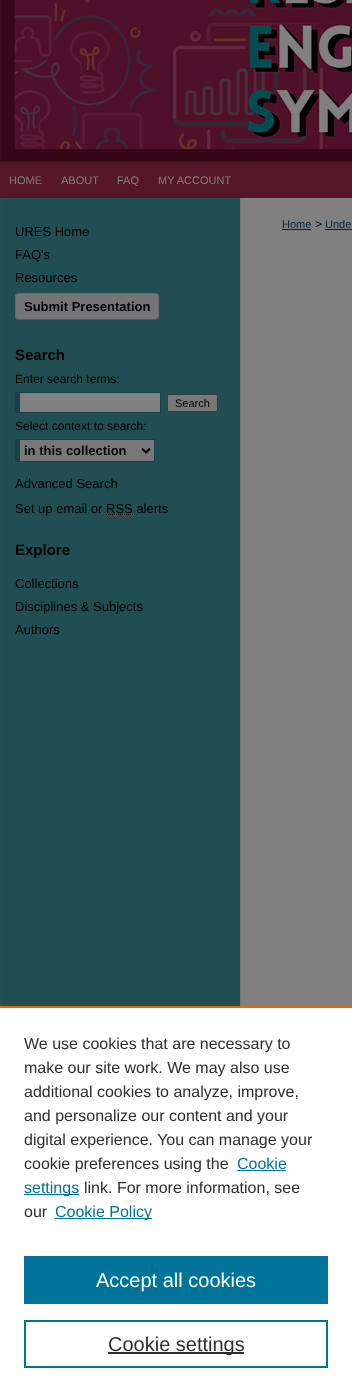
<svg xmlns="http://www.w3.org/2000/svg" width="352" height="1392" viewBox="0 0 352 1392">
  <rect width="100%" height="100%" fill="#ffffff"/>
  <image x="0" y="0" width="352" height="162" href="img1.png"/>
  <rect x="0" y="162" width="352" height="36" fill="#56162a"/>
  <text x="9" y="184" font-family="Liberation Sans" font-size="11" fill="#808080">HOME</text>
  <text x="61" y="184" font-family="Liberation Sans" font-size="11" fill="#808080">ABOUT</text>
  <text x="117" y="184" font-family="Liberation Sans" font-size="11" fill="#808080">FAQ</text>
  <text x="158" y="184" font-family="Liberation Sans" font-size="11" fill="#808080">MY ACCOUNT</text>
  <image x="0" y="198" width="352" height="808" href="img2.png"/>
  <text x="282" y="228" font-family="Liberation Sans" font-size="11" fill="#08273e">Home</text>
  <rect x="282" y="229" width="29" height="1" fill="#08273e"/>
  <text x="315" y="228" font-family="Liberation Sans" font-size="12" fill="#000000">&gt;</text>
  <text x="325" y="228" font-family="Liberation Sans" font-size="11" fill="#08273e">Unde</text>
  <rect x="325" y="229" width="27" height="1" fill="#08273e"/>
  <text x="15" y="236" font-family="Liberation Sans" font-size="13" fill="#000000">URES Home</text>
  <text x="15" y="259" font-family="Liberation Sans" font-size="13" fill="#000000">FAQ's</text>
  <text x="15" y="282" font-family="Liberation Sans" font-size="13" fill="#000000">Resources</text>
  <rect x="15" y="293" width="144" height="27" rx="4" fill="#757577"/>
  <path d="M157.5 318.5C157 319 156 319.5 155 319.5H19C18 319.5 17 319 16.5 318.5" fill="none" stroke="#000000" stroke-opacity="0.25"/>
  <path d="M16.5 318.5C14.5 316.5 15.5 309 15.5 306.5V300C15.5 297.5 15 293.5 19 293.5H155C159 293.5 158.5 297.5 158.5 300V306.5C158.5 309 159.5 316.5 157.5 318.5" fill="none" stroke="#000000" stroke-opacity="0.1"/>
  <text x="24" y="311" font-family="Liberation Sans" font-size="13" font-weight="bold" fill="#000000">Submit Presentation</text>
  <text x="15" y="360" font-family="Liberation Sans" font-size="15" font-weight="bold" fill="#000000">Search</text>
  <text x="15" y="383" font-family="Liberation Sans" font-size="12" fill="#000000">Enter search terms:</text>
  <rect x="20" y="393" width="140" height="19" fill="#808080"/>
  <rect x="15" y="392" width="146" height="1" fill="#144449"/>
  <rect x="160" y="392" width="1" height="21" fill="#144449"/>
  <rect x="15" y="412" width="146" height="1" fill="#144449"/>
  <rect x="15" y="392" width="5" height="21" fill="#144449"/>
  <rect x="167.5" y="394.5" width="50" height="17" rx="1.5" fill="#787878" stroke="#3b3b3b"/>
  <text x="175" y="407" font-family="Liberation Sans" font-size="11" fill="#000000">Search</text>
  <text x="15" y="430" font-family="Liberation Sans" font-size="12" fill="#000000">Select context to search:</text>
  <rect x="20" y="440" width="134" height="21" fill="#787878"/>
  <rect x="15" y="439" width="140" height="1" fill="#144449"/>
  <rect x="154" y="439" width="1" height="23" fill="#144449"/>
  <rect x="15" y="461" width="140" height="1" fill="#144449"/>
  <rect x="15" y="439" width="5" height="23" fill="#144449"/>
  <path d="M142 448.5L146 452.5L150 448.5" fill="none" stroke="#000000" stroke-width="2"/>
  <text x="24" y="455" font-family="Liberation Sans" font-size="13" font-weight="bold" fill="#000000">in this collection</text>
  <text x="15" y="488" font-family="Liberation Sans" font-size="13" fill="#000000">Advanced Search</text>
  <text x="15" y="513" font-family="Liberation Sans" font-size="13" fill="#000000">Set up email or RSS alerts</text>
  <path d="M106 514.5H133" fill="none" stroke="#000000" stroke-dasharray="1 1"/>
  <path d="M106 516.5H133" fill="none" stroke="#4d4d4d" stroke-dasharray="1 1"/>
  <text x="15" y="555" font-family="Liberation Sans" font-size="15" font-weight="bold" fill="#000000">Explore</text>
  <text x="15" y="588" font-family="Liberation Sans" font-size="13" fill="#000000">Collections</text>
  <text x="15" y="611" font-family="Liberation Sans" font-size="13" fill="#000000">Disciplines &amp; Subjects</text>
  <text x="15" y="634" font-family="Liberation Sans" font-size="13" fill="#000000">Authors</text>
  <rect x="0" y="1006" width="352" height="2" fill="#eb6500"/>
  <text x="24" y="1049" font-family="Liberation Sans" font-size="16" fill="#2e2e2e">We use cookies that are necessary to</text>
  <text x="24" y="1073" font-family="Liberation Sans" font-size="16" fill="#2e2e2e">make our site work. We may also use</text>
  <text x="24" y="1097" font-family="Liberation Sans" font-size="16" fill="#2e2e2e">additional cookies to analyze, improve,</text>
  <text x="24" y="1121" font-family="Liberation Sans" font-size="16" fill="#2e2e2e">and personalize our content and your</text>
  <text x="24" y="1145" font-family="Liberation Sans" font-size="16" fill="#2e2e2e">digital experience. You can manage your</text>
  <text x="24" y="1169" font-family="Liberation Sans" font-size="16" fill="#2e2e2e">cookie preferences using the</text>
  <text x="237" y="1169" font-family="Liberation Sans" font-size="16" fill="#007398">Cookie</text>
  <rect x="237" y="1170" width="49" height="1" fill="#007398"/>
  <rect x="24" y="1194" width="55" height="1" fill="#007398"/>
  <text x="24" y="1193" font-family="Liberation Sans" font-size="16" fill="#007398">settings</text>
  <text x="84" y="1193" font-family="Liberation Sans" font-size="16" fill="#2e2e2e">link. For more information, see</text>
  <text x="24" y="1217" font-family="Liberation Sans" font-size="16" fill="#2e2e2e">our</text>
  <rect x="55" y="1218" width="97" height="1" fill="#007398"/>
  <text x="55" y="1217" font-family="Liberation Sans" font-size="16" fill="#007398">Cookie Policy</text>
  <rect x="24" y="1256" width="304" height="48" fill="#007398"/>
  <text x="96" y="1287" font-family="Liberation Sans" font-size="20" fill="#ffffff">Accept all cookies</text>
  <rect x="25" y="1321" width="302" height="46" fill="none" stroke="#007398" stroke-width="2"/>
  <rect x="108" y="1352" width="136" height="2" fill="#2e2e2e"/>
  <text x="108" y="1351" font-family="Liberation Sans" font-size="20" fill="#2e2e2e">Cookie settings</text>
</svg>
